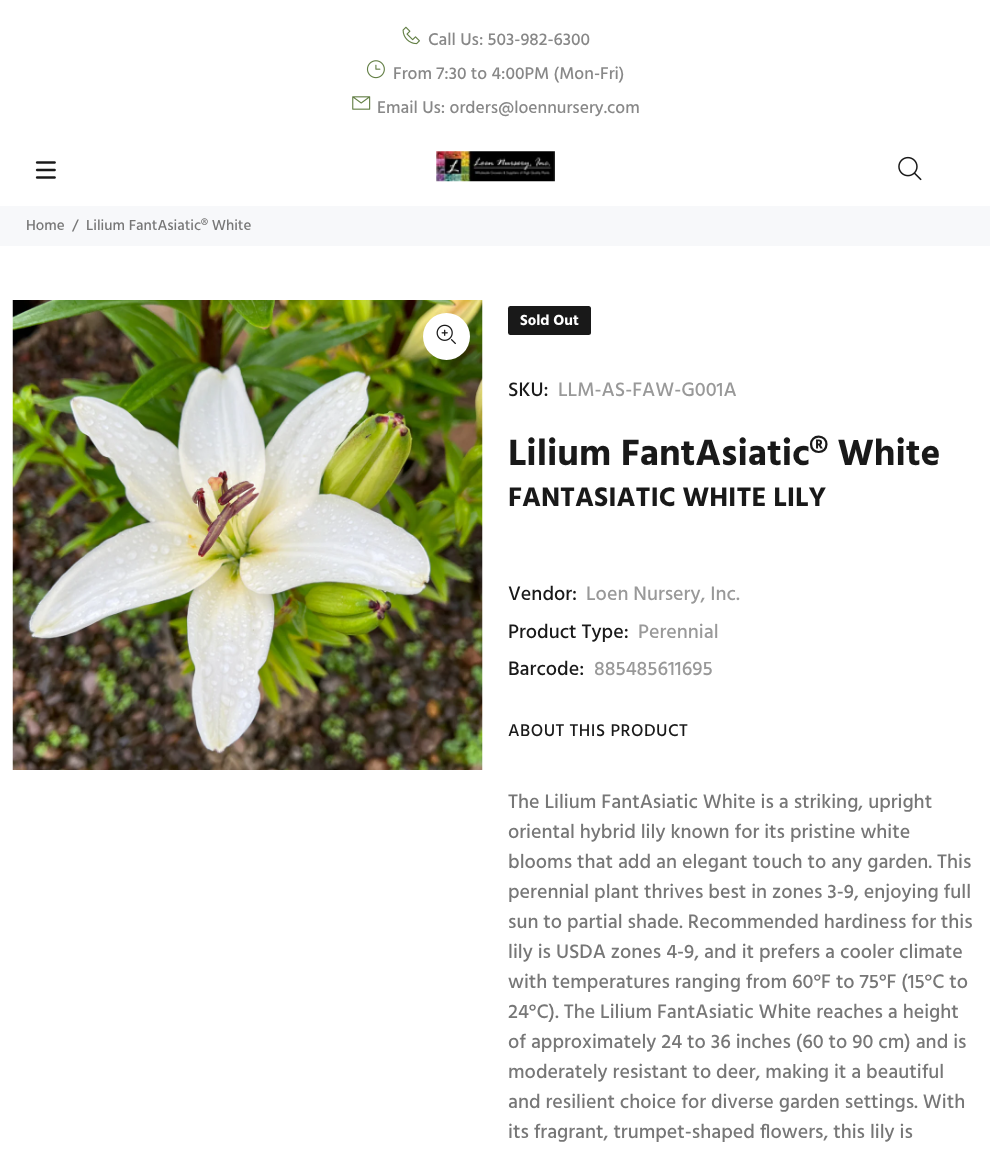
<svg xmlns="http://www.w3.org/2000/svg" width="990" height="1158" viewBox="0 0 990 1158">
  <rect width="100%" height="100%" fill="#ffffff"/>
  <image x="402" y="26" width="18" height="19" href="img1.png"/>
  <text x="428" y="45" font-family="Hind" font-size="17.5" font-weight="500" fill="#888888">Call Us: 503-982-6300</text>
  <image x="366" y="60" width="19" height="19" href="img2.png"/>
  <text x="393" y="79" font-family="Hind" font-size="17.5" font-weight="500" fill="#888888">From 7:30 to 4:00PM (Mon-Fri)</text>
  <image x="352" y="96" width="19" height="14" href="img3.png"/>
  <text x="377" y="113" font-family="Hind" font-size="17.5" font-weight="500" fill="#888888">Email Us: orders@loennursery.com</text>
  <image x="35" y="161" width="21" height="18" href="img4.png"/>
  <image x="436" y="151" width="119" height="31" href="img5.png"/>
  <image x="898" y="156" width="24" height="25" href="img6.png"/>
  <rect x="0" y="206" width="990" height="40" fill="#f7f8fa"/>
  <text x="26" y="230" font-family="Hind" font-size="15" font-weight="500" fill="#777777">Home</text>
  <text x="72" y="230" font-family="Hind" font-size="15" font-weight="500" fill="#777777">/</text>
  <text x="86" y="230" font-family="Hind" font-size="15" font-weight="500" fill="#777777">Lilium FantAsiatic® White</text>
  <image x="12" y="300" width="471" height="470" href="img7.png"/>
  <circle cx="446.5" cy="336.5" r="23.5" fill="#ffffff"/>
  <image x="436" y="324" width="20" height="21" href="img8.png"/>
  <rect x="508" y="306" width="83" height="29" rx="2.5" fill="#191919"/>
  <text x="520" y="325" font-family="Hind" font-size="15" font-weight="bold" fill="#ffffff">Sold Out</text>
  <text x="508" y="396" font-family="Hind" font-size="20" font-weight="500" fill="#191919">SKU:</text>
  <text x="558" y="396" font-family="Hind" font-size="20" font-weight="500" fill="#999999">LLM-AS-FAW-G001A</text>
  <text x="508" y="465" font-family="Hind" font-size="37.5" font-weight="bold" fill="#191919">Lilium FantAsiatic® White</text>
  <text x="508" y="506" font-family="Hind" font-size="27.5" font-weight="bold" fill="#191919">FANTASIATIC WHITE LILY</text>
  <text x="508" y="600" font-family="Hind" font-size="20" font-weight="500" fill="#191919">Vendor:</text>
  <text x="586" y="600" font-family="Hind" font-size="20" font-weight="500" fill="#999999">Loen Nursery, Inc.</text>
  <text x="508" y="638" font-family="Hind" font-size="20" font-weight="500" fill="#191919">Product Type:</text>
  <text x="638" y="638" font-family="Hind" font-size="20" font-weight="500" fill="#999999">Perennial</text>
  <text x="508" y="675" font-family="Hind" font-size="20" font-weight="500" fill="#191919">Barcode:</text>
  <text x="594" y="675" font-family="Hind" font-size="20" font-weight="500" fill="#999999">885485611695</text>
  <text x="508" y="736" font-family="Hind" font-size="17.5" font-weight="500" letter-spacing="0.5" fill="#191919">ABOUT THIS PRODUCT</text>
  <text x="508" y="808" font-family="Hind" font-size="20" font-weight="500" fill="#777777">The Lilium FantAsiatic White is a striking, upright</text>
  <text x="508" y="838" font-family="Hind" font-size="20" font-weight="500" fill="#777777">oriental hybrid lily known for its pristine white</text>
  <text x="508" y="868" font-family="Hind" font-size="20" font-weight="500" fill="#777777">blooms that add an elegant touch to any garden. This</text>
  <text x="508" y="898" font-family="Hind" font-size="20" font-weight="500" fill="#777777">perennial plant thrives best in zones 3-9, enjoying full</text>
  <text x="508" y="928" font-family="Hind" font-size="20" font-weight="500" fill="#777777">sun to partial shade. Recommended hardiness for this</text>
  <text x="508" y="958" font-family="Hind" font-size="20" font-weight="500" fill="#777777">lily is USDA zones 4-9, and it prefers a cooler climate</text>
  <text x="508" y="988" font-family="Hind" font-size="20" font-weight="500" fill="#777777">with temperatures ranging from 60°F to 75°F (15°C to</text>
  <text x="508" y="1018" font-family="Hind" font-size="20" font-weight="500" fill="#777777">24°C). The Lilium FantAsiatic White reaches a height</text>
  <text x="508" y="1048" font-family="Hind" font-size="20" font-weight="500" fill="#777777">of approximately 24 to 36 inches (60 to 90 cm) and is</text>
  <text x="508" y="1078" font-family="Hind" font-size="20" font-weight="500" fill="#777777">moderately resistant to deer, making it a beautiful</text>
  <text x="508" y="1108" font-family="Hind" font-size="20" font-weight="500" fill="#777777">and resilient choice for diverse garden settings. With</text>
  <text x="508" y="1138" font-family="Hind" font-size="20" font-weight="500" fill="#777777">its fragrant, trumpet-shaped flowers, this lily is</text>
</svg>
